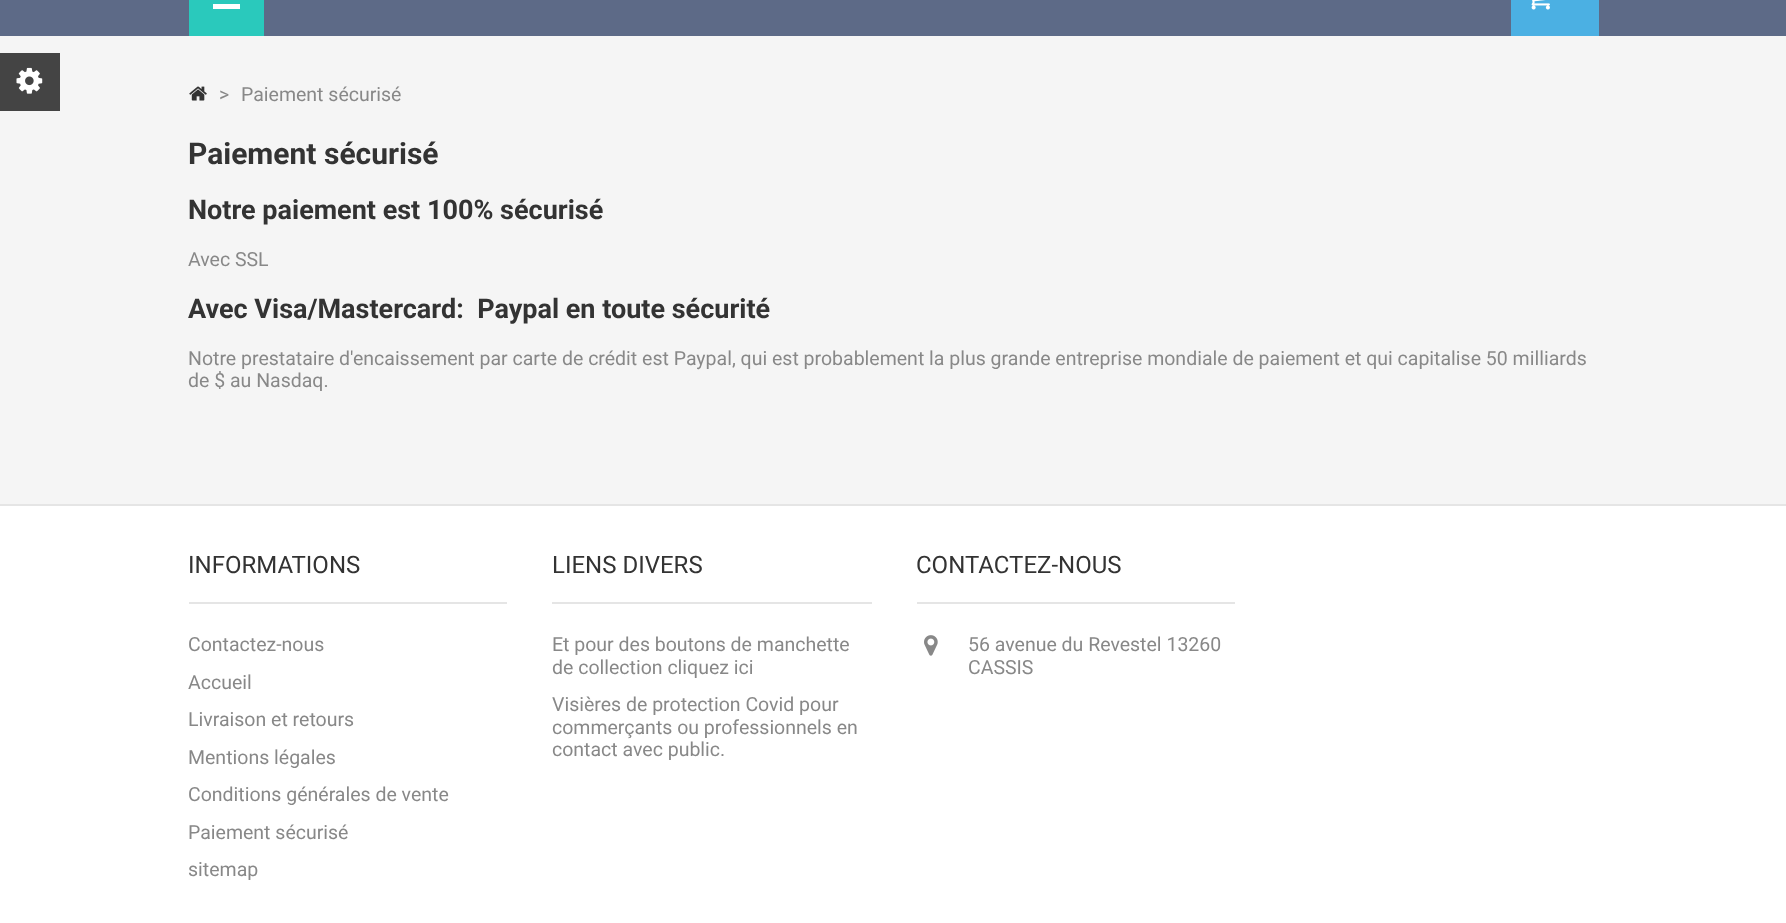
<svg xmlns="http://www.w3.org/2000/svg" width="1786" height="923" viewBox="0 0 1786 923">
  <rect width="100%" height="100%" fill="#ffffff"/>
  <rect x="0" y="36" width="1786" height="468" fill="#f5f5f5"/>
  <rect x="0" y="53" width="60" height="58" fill="#444444"/>
  <image x="16" y="67" width="27" height="27" href="img1.png"/>
  <rect x="0" y="0" width="1786" height="36" fill="#5d6a87"/>
  <rect x="189" y="0" width="75" height="36" fill="#2ac9bc"/>
  <rect x="213" y="4" width="27" height="5" fill="#ffffff"/>
  <rect x="1511" y="0" width="88" height="36" fill="#4bb0e3"/>
  <image x="1531" y="0" width="19" height="10" href="img2.png"/>
  <image x="189" y="86" width="18" height="15" href="img3.png"/>
  <text x="219" y="101" font-family="Roboto" font-size="19.5" fill="#888888">&gt;</text>
  <text x="241" y="101" font-family="Roboto" font-size="19.5" fill="#888888">Paiement sécurisé</text>
  <text x="188" y="164" font-family="Roboto" font-size="30" font-weight="bold" fill="#333333">Paiement sécurisé</text>
  <text x="188" y="219" font-family="Roboto" font-size="27" font-weight="bold" fill="#333333">Notre paiement est 100% sécurisé</text>
  <text x="188" y="266" font-family="Roboto" font-size="19.5" fill="#888888">Avec SSL</text>
  <text x="188" y="318" font-family="Roboto" font-size="27" font-weight="bold" fill="#333333" xml:space="preserve">Avec Visa/Mastercard:  Paypal en toute sécurité</text>
  <text x="188" y="365" font-family="Roboto" font-size="19.5" fill="#888888">Notre prestataire d'encaissement par carte de crédit est Paypal, qui est probablement la plus grande entreprise mondiale de paiement et qui capitalise 50 milliards</text>
  <text x="188" y="387" font-family="Roboto" font-size="19.5" fill="#888888">de $ au Nasdaq.</text>
  <rect x="0" y="504" width="1786" height="2" fill="#e5e5e5"/>
  <rect x="189" y="602" width="318" height="2" fill="#e5e5e5"/>
  <text x="188" y="573" font-family="Roboto" font-size="24" fill="#333333">INFORMATIONS</text>
  <text x="188" y="651" font-family="Roboto" font-size="19.5" fill="#888888">Contactez-nous</text>
  <text x="188" y="689" font-family="Roboto" font-size="19.5" fill="#888888">Accueil</text>
  <text x="188" y="726" font-family="Roboto" font-size="19.5" fill="#888888">Livraison et retours</text>
  <text x="188" y="764" font-family="Roboto" font-size="19.5" fill="#888888">Mentions légales</text>
  <text x="188" y="801" font-family="Roboto" font-size="19.5" fill="#888888">Conditions générales de vente</text>
  <text x="188" y="839" font-family="Roboto" font-size="19.5" fill="#888888">Paiement sécurisé</text>
  <text x="188" y="876" font-family="Roboto" font-size="19.5" fill="#888888">sitemap</text>
  <rect x="552" y="602" width="320" height="2" fill="#e5e5e5"/>
  <text x="552" y="573" font-family="Roboto" font-size="24" fill="#333333">LIENS DIVERS</text>
  <text x="552" y="651" font-family="Roboto" font-size="19.5" fill="#888888">Et pour des boutons de manchette</text>
  <text x="552" y="674" font-family="Roboto" font-size="19.5" fill="#888888">de collection cliquez ici</text>
  <text x="552" y="711" font-family="Roboto" font-size="19.5" fill="#888888">Visières de protection Covid pour</text>
  <text x="552" y="734" font-family="Roboto" font-size="19.5" fill="#888888">commerçants ou professionnels en</text>
  <text x="552" y="756" font-family="Roboto" font-size="19.5" fill="#888888">contact avec public.</text>
  <rect x="917" y="602" width="318" height="2" fill="#e5e5e5"/>
  <text x="916" y="573" font-family="Roboto" font-size="24" fill="#333333">CONTACTEZ-NOUS</text>
  <image x="924" y="635" width="14" height="21" href="img4.png"/>
  <text x="968" y="651" font-family="Roboto" font-size="19.5" fill="#888888">56 avenue du Revestel 13260</text>
  <text x="968" y="674" font-family="Roboto" font-size="19.5" fill="#888888">CASSIS</text>
</svg>
